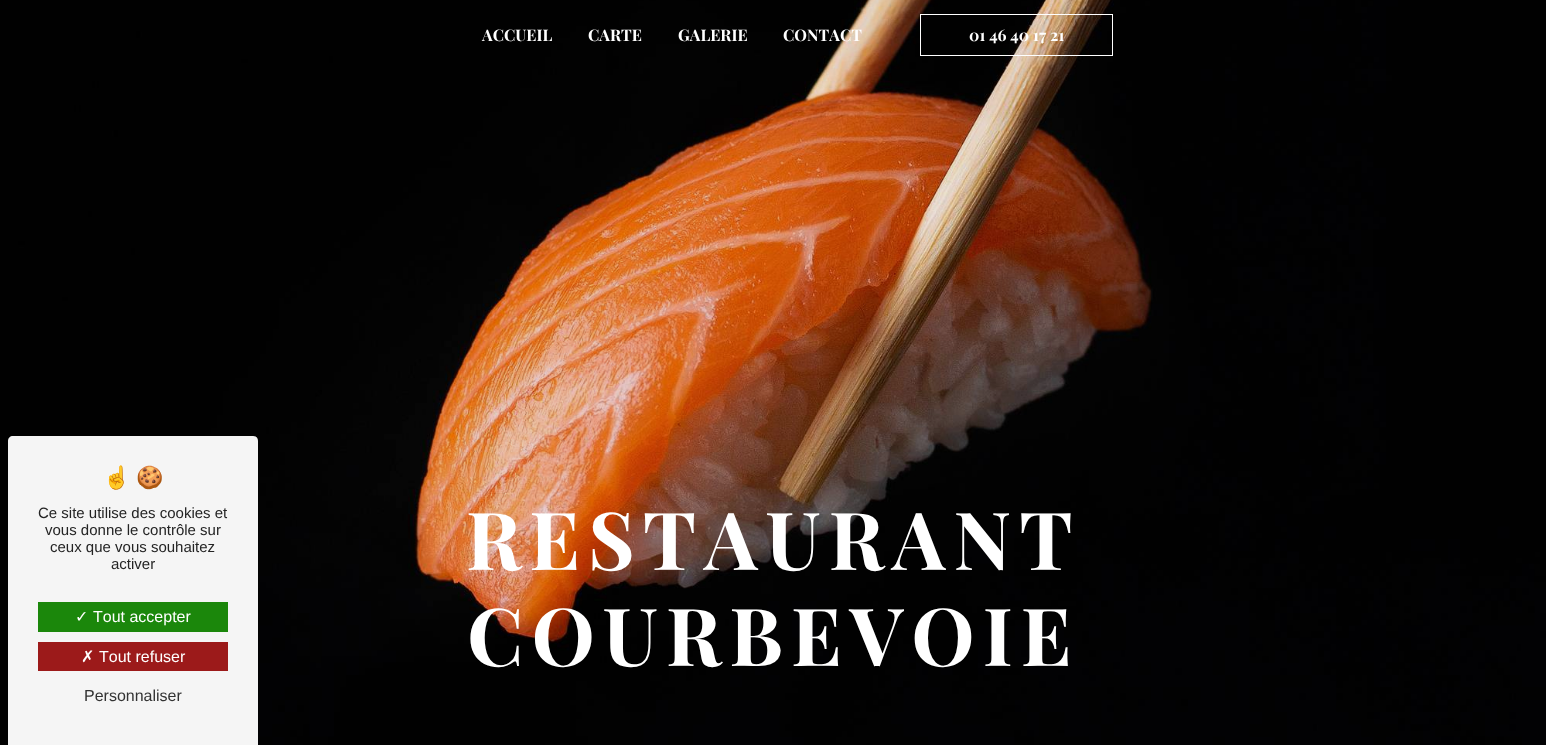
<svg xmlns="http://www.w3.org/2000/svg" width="1546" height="745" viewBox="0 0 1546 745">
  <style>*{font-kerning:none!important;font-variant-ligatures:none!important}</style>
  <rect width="100%" height="100%" fill="#ffffff"/>
  <image x="0" y="0" width="1546" height="745" href="img1.png"/>
  <path d="M13 436H253C256 436 258 438 258 441V745H8V441C8 438 10 436 13 436Z" fill="#f5f5f5"/>
  <text x="103" y="485" font-family="Noto Color Emoji" font-size="22" fill="#242424">☝</text>
  <text x="136" y="485" font-family="Noto Color Emoji" font-size="22" fill="#242424">🍪</text>
  <text x="38" y="518" font-family="Liberation Sans" font-size="15" fill="#242424">Ce site utilise des cookies et</text>
  <text x="45" y="535" font-family="Liberation Sans" font-size="15" fill="#242424">vous donne le contrôle sur</text>
  <text x="50" y="552" font-family="Liberation Sans" font-size="15" fill="#242424">ceux que vous souhaitez</text>
  <text x="111" y="569" font-family="Liberation Sans" font-size="15" fill="#242424">activer</text>
  <rect x="38" y="602" width="190" height="30" fill="#1b870b"/>
  <text x="75" y="622" font-family="DejaVu Sans" font-size="16" fill="#ffffff">✓</text>
  <text x="93" y="622" font-family="Liberation Sans" font-size="16" fill="#ffffff">Tout accepter</text>
  <rect x="38" y="642" width="190" height="29" fill="#9c1a1a"/>
  <text x="81" y="662" font-family="DejaVu Sans" font-size="16" fill="#ffffff">✗</text>
  <text x="99" y="662" font-family="Liberation Sans" font-size="16" fill="#ffffff">Tout refuser</text>
  <text x="84" y="701" font-family="Liberation Sans" font-size="16" fill="#333333">Personnaliser</text>
  <text x="482" y="41" font-family="Playfair Display" font-size="16" font-weight="bold" fill="#ffffff">ACCUEIL</text>
  <text x="588" y="41" font-family="Playfair Display" font-size="16" font-weight="bold" fill="#ffffff">CARTE</text>
  <text x="678" y="41" font-family="Playfair Display" font-size="16" font-weight="bold" fill="#ffffff">GALERIE</text>
  <text x="783" y="41" font-family="Playfair Display" font-size="16" font-weight="bold" fill="#ffffff">CONTACT</text>
  <rect x="920.5" y="14.5" width="192" height="41" fill="none" stroke="#ffffff"/>
  <text x="969" y="41" font-family="Playfair Display" font-size="16" font-weight="bold" fill="#ffffff">01 46 40 17 21</text>
  <text x="466" y="570" font-family="Playfair Display" font-size="80" font-weight="bold" letter-spacing="8" fill="#ffffff">RESTAURANT</text>
  <text x="467" y="666" font-family="Playfair Display" font-size="80" font-weight="bold" letter-spacing="8" fill="#ffffff">COURBEVOIE</text>
</svg>
